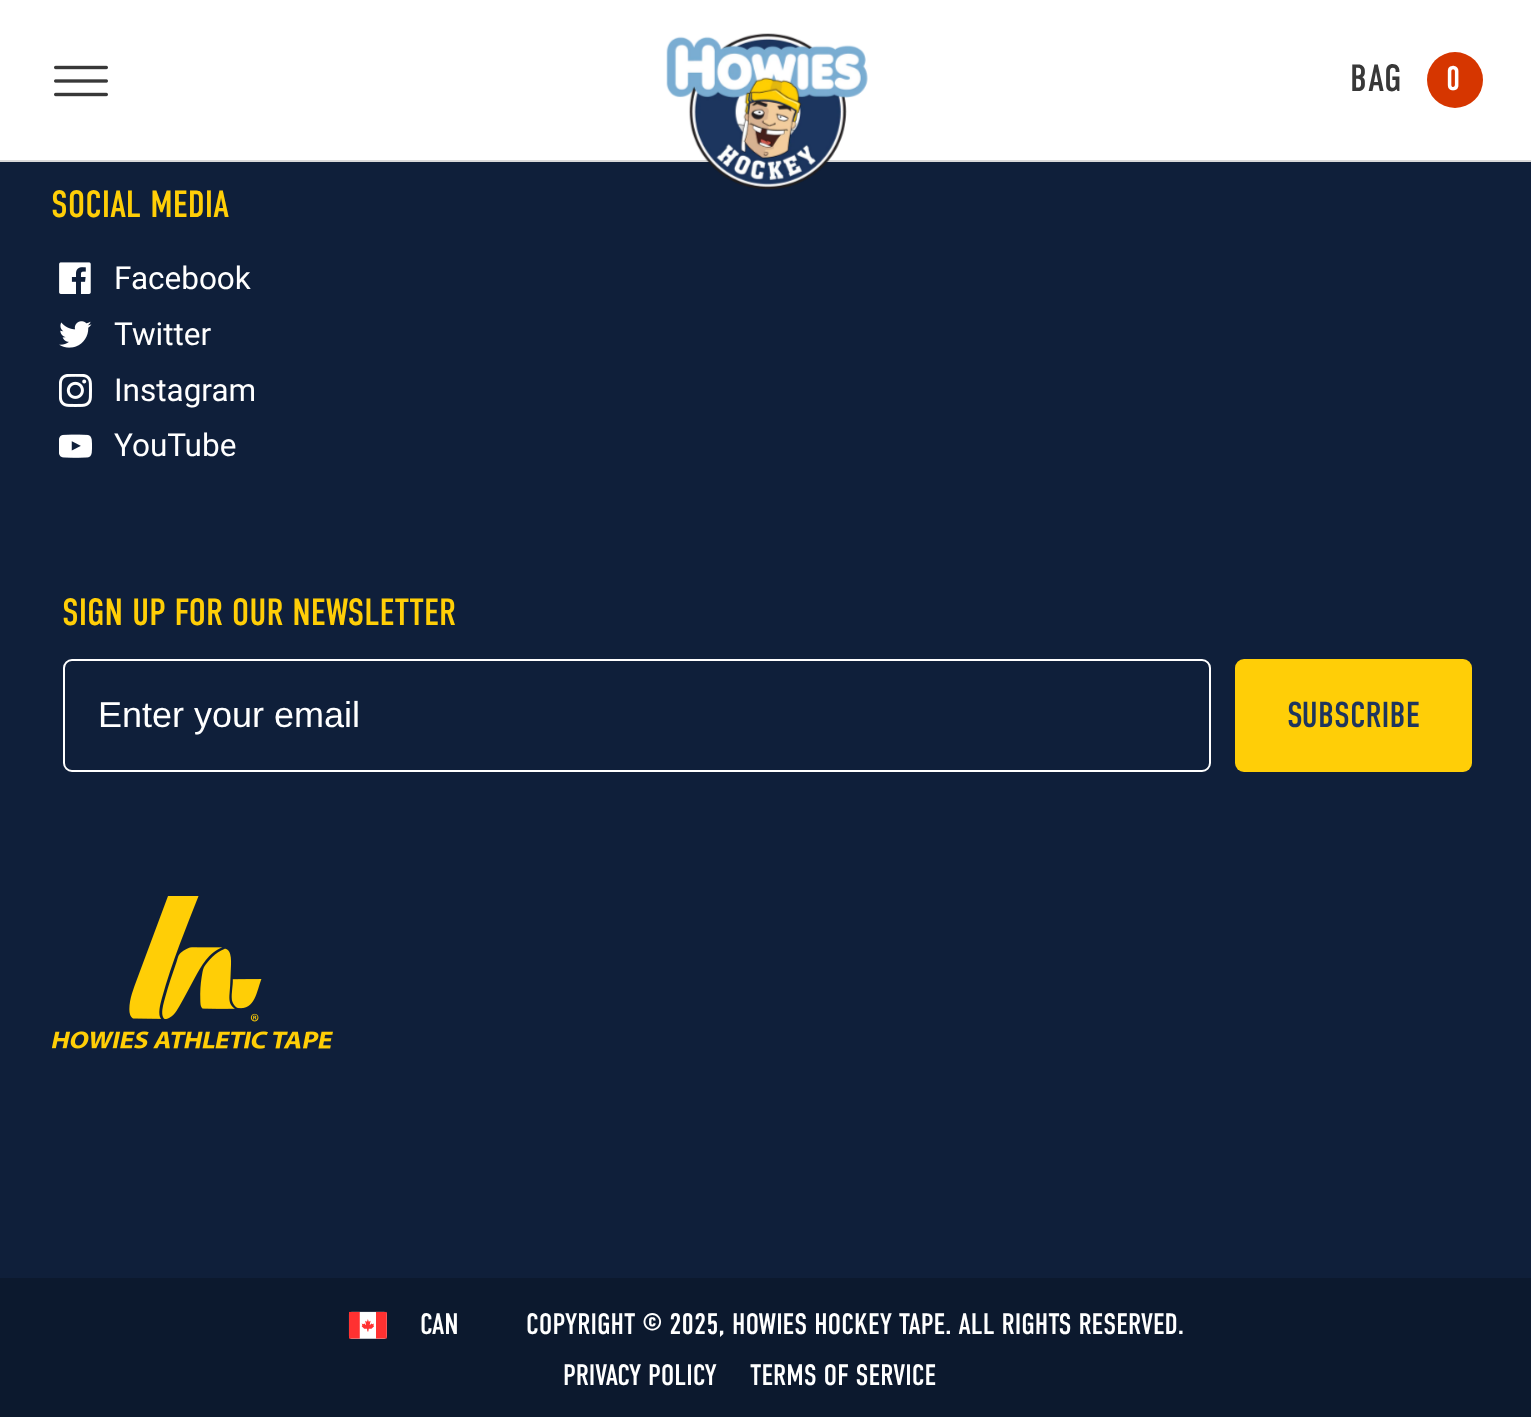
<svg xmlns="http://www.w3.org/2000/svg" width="1531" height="1417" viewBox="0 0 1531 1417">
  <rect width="100%" height="100%" fill="#0c192e"/>
  <rect x="0" y="0" width="1531" height="160" fill="#ffffff"/>
  <rect x="0" y="160" width="1531" height="2" fill="#d9d9d9"/>
  <image x="54" y="65" width="54" height="32" href="img1.png"/>
  <rect x="0" y="162" width="1531" height="1116" fill="#0f1f3a"/>
  <image x="666" y="33" width="202" height="157" href="img2.png"/>
  <text x="1350" y="91" font-family="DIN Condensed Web" font-size="38" letter-spacing="1" fill="#383838">BAG</text>
  <circle cx="1455" cy="80" r="28" fill="#d63600"/>
  <text x="1446" y="90" font-family="DIN Condensed Web" font-size="34" letter-spacing="1" fill="#ffffff">0</text>
  <text x="51" y="217" font-family="DIN Condensed Web" font-size="38" fill="#ffce07">SOCIAL MEDIA</text>
  <image x="59" y="262" width="32" height="32" href="img3.png"/>
  <text x="114" y="289" font-family="Roboto" font-size="31.5" fill="#ffffff">Facebook</text>
  <image x="59" y="321" width="33" height="27" href="img4.png"/>
  <text x="114" y="345" font-family="Roboto" font-size="31.5" fill="#ffffff">Twitter</text>
  <image x="59" y="374" width="33" height="33" href="img5.png"/>
  <text x="114" y="401" font-family="Roboto" font-size="31.5" fill="#ffffff">Instagram</text>
  <image x="59" y="434" width="33" height="24" href="img6.png"/>
  <text x="114" y="456" font-family="Roboto" font-size="31.5" fill="#ffffff">YouTube</text>
  <text x="62" y="625" font-family="DIN Condensed Web" font-size="38" fill="#ffce07">SIGN UP FOR OUR NEWSLETTER</text>
  <rect x="64" y="660" width="1146" height="111" rx="8" fill="none" stroke="#ffffff" stroke-width="2"/>
  <text x="98" y="727" font-family="Liberation Sans" font-size="36" fill="#ffffff">Enter your email</text>
  <rect x="1235" y="659" width="237" height="113" rx="9" fill="#ffce07"/>
  <text x="1287" y="727" font-family="DIN Condensed Web" font-size="36" fill="#1e355e">SUBSCRIBE</text>
  <image x="52" y="896" width="281" height="153" href="img7.png"/>
  <image x="348" y="1311" width="39" height="28" href="img8.png"/>
  <text x="420" y="1334" font-family="DIN Condensed Web" font-size="29.5" fill="#ffffff">CAN</text>
  <text x="526" y="1334" font-family="DIN Condensed Web" font-size="29.5" fill="#ffffff">COPYRIGHT © 2025, HOWIES HOCKEY TAPE. ALL RIGHTS RESERVED.</text>
  <text x="563" y="1385" font-family="DIN Condensed Web" font-size="29.5" fill="#ffffff">PRIVACY POLICY</text>
  <text x="750" y="1385" font-family="DIN Condensed Web" font-size="29.5" fill="#ffffff">TERMS OF SERVICE</text>
</svg>
